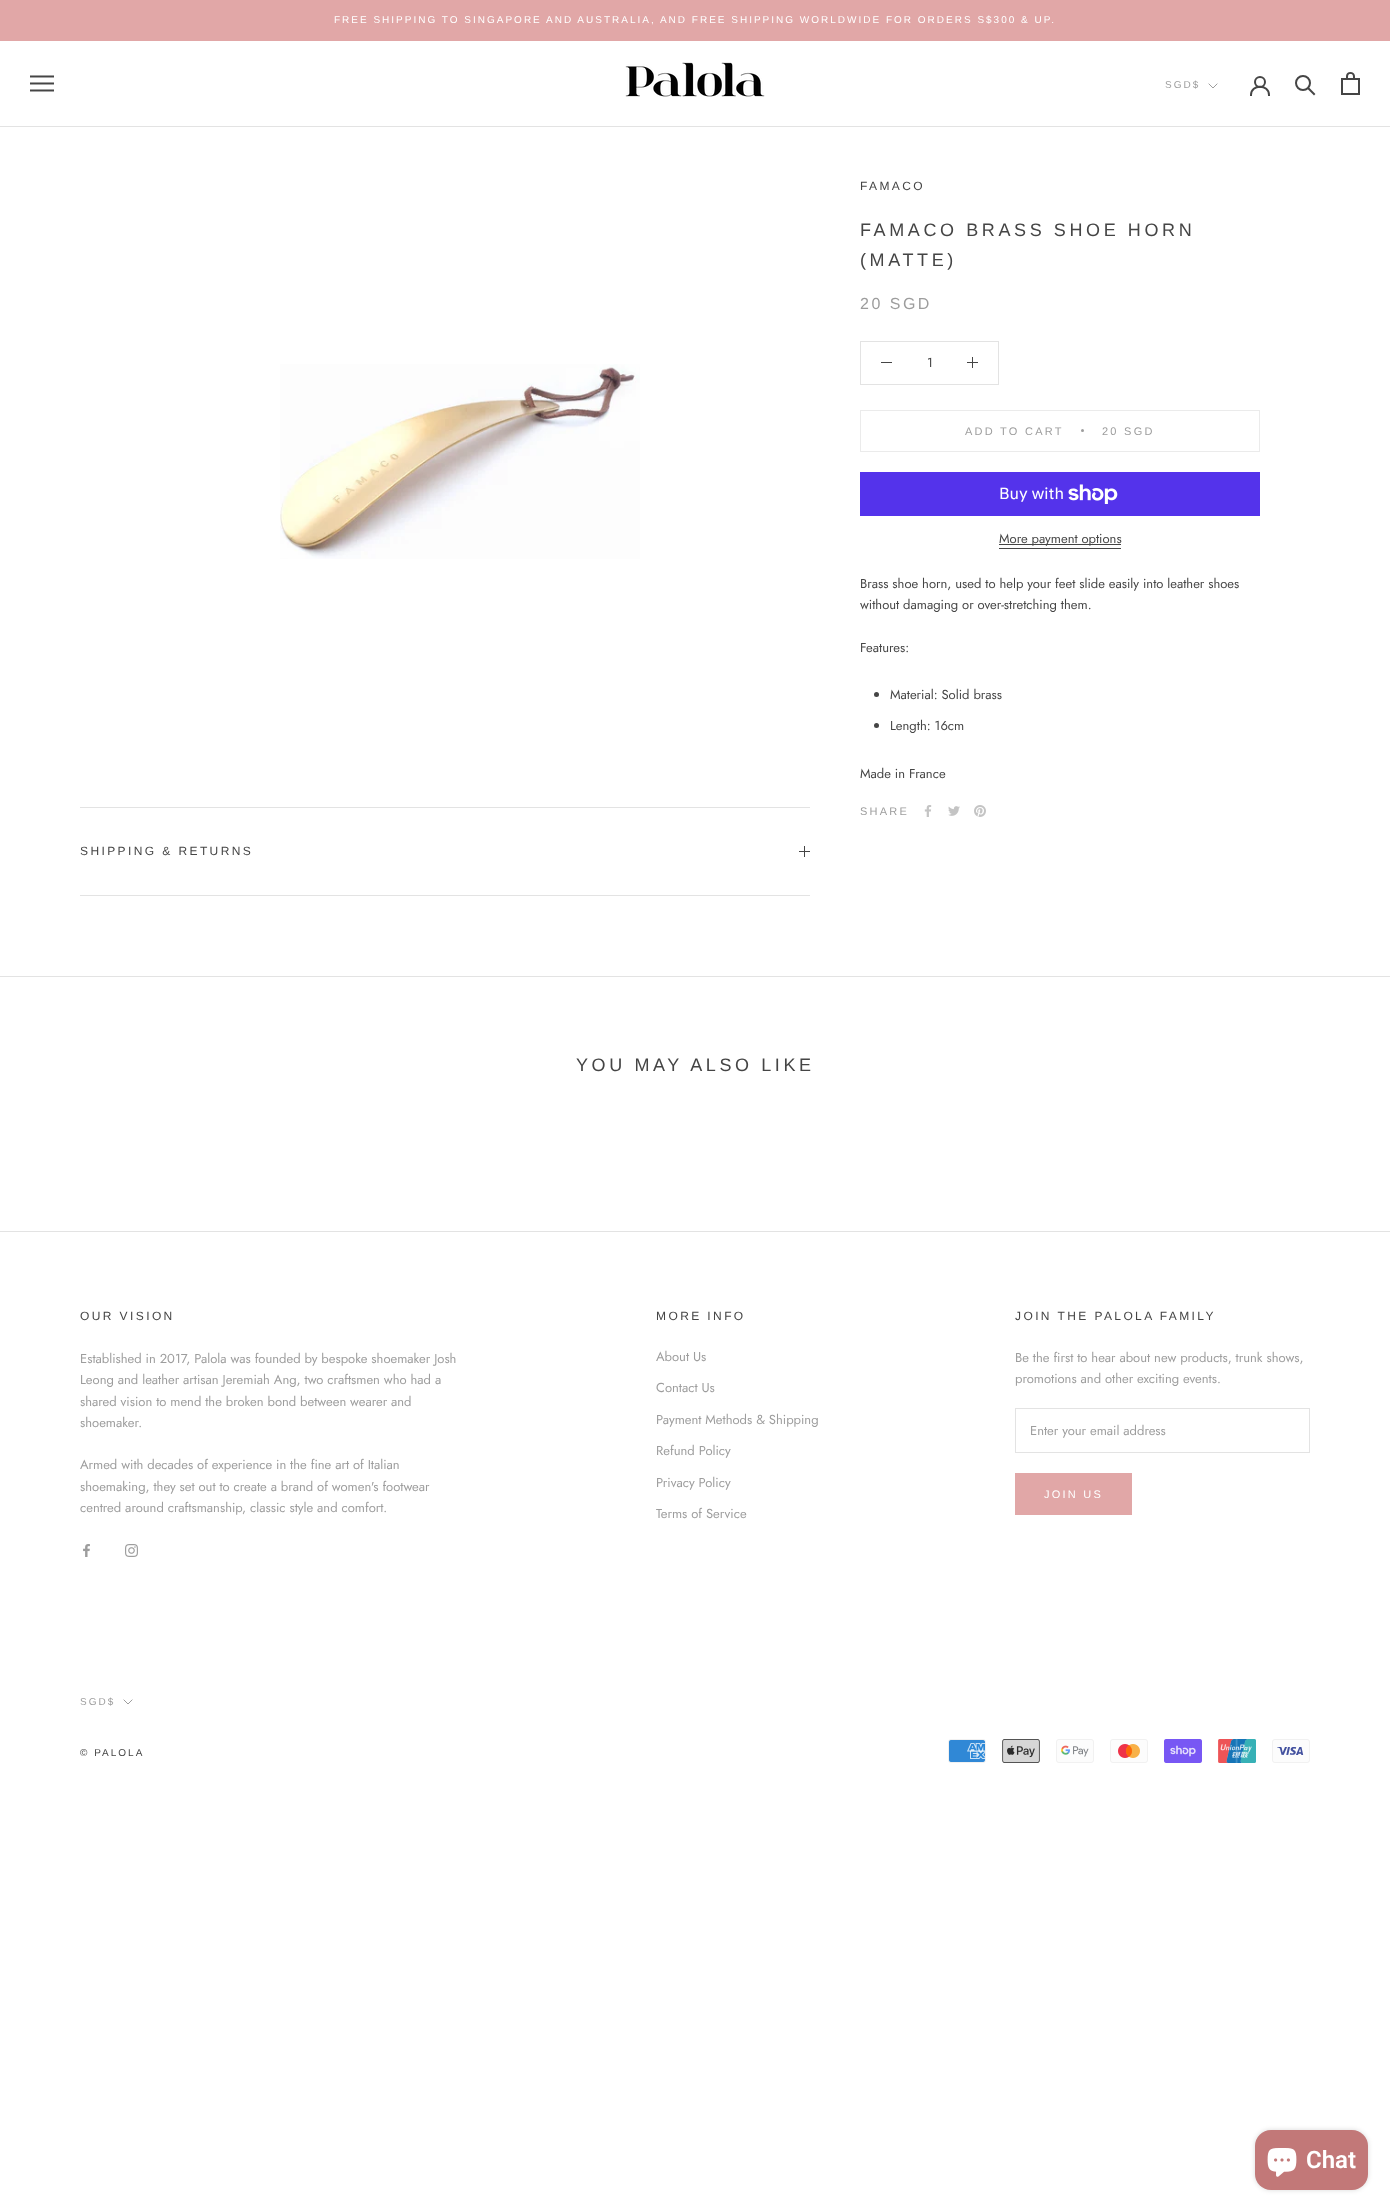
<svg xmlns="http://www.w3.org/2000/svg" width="1390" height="2211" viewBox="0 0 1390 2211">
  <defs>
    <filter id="blur1" x="-50%" y="-200%" width="200%" height="500%"><feGaussianBlur stdDeviation="2.5"/></filter>
  </defs>
  <rect width="100%" height="100%" fill="#ffffff"/>
  <rect x="0" y="0" width="1390" height="41" fill="#e1a7a7"/>
  <text x="334" y="23" font-family="Liberation Sans" font-size="10" letter-spacing="2" fill="#ffffff">FREE SHIPPING TO SINGAPORE AND AUSTRALIA, AND FREE SHIPPING WORLDWIDE FOR ORDERS S$300 &amp; UP.</text>
  <rect x="0" y="126" width="1390" height="1" fill="#e3e3e3"/>
  <image x="30" y="75" width="24" height="17" href="img1.png"/>
  <image x="625" y="62" width="140" height="35" href="img2.png"/>
  <text x="1165" y="88" font-family="Liberation Sans" font-size="10" letter-spacing="2" fill="#9d9d9d">SGD$</text>
  <path d="M1217 84L1213 88L1209 84" fill="none" stroke="#9d9d9d" stroke-linecap="square"/>
  <path d="M1251 95C1251 84 1269 84 1269 95" fill="none" stroke="#454545" stroke-width="2" stroke-linecap="square"/>
  <circle cx="1260" cy="82" r="5" fill="none" stroke="#454545" stroke-width="2"/>
  <path d="M1314 94L1308.5 88.5" fill="none" stroke="#454545" stroke-width="2" stroke-linecap="square"/>
  <circle cx="1303" cy="83" r="7" fill="none" stroke="#454545" stroke-width="2"/>
  <image x="1341" y="72" width="19" height="23" href="img3.png"/>
  <image x="280" y="364" width="360" height="195" href="img4.png"/>
  <text x="860" y="190" font-family="Liberation Sans" font-size="12" letter-spacing="2.4" fill="#454545">FAMACO</text>
  <text x="860" y="236" font-family="Liberation Sans" font-size="18" letter-spacing="3.6" fill="#454545">FAMACO BRASS SHOE HORN</text>
  <text x="860" y="266" font-family="Liberation Sans" font-size="18" letter-spacing="3.6" fill="#454545">(MATTE)</text>
  <text x="860" y="309" font-family="Liberation Sans" font-size="16" letter-spacing="2.5" fill="#9d9d9d">20 SGD</text>
  <rect x="860.5" y="341.5" width="138" height="43" fill="none" stroke="#e3e3e3"/>
  <rect x="881" y="362" width="11" height="1" fill="#454545"/>
  <text x="927" y="367" font-family="Jost" font-size="13" fill="#454545">1</text>
  <rect x="972" y="357" width="1" height="11" fill="#454545"/>
  <rect x="967" y="362" width="11" height="1" fill="#454545"/>
  <rect x="860.5" y="410.5" width="399" height="41" fill="none" stroke="#ebebeb"/>
  <text x="965" y="435" font-family="Liberation Sans" font-size="11" letter-spacing="2.25" fill="#9d9d9d">ADD TO CART</text>
  <circle cx="1082.5" cy="430.5" r="1.5" fill="#9d9d9d"/>
  <text x="1102" y="435" font-family="Liberation Sans" font-size="11" letter-spacing="2.25" fill="#9d9d9d">20 SGD</text>
  <rect x="860" y="472" width="400" height="44" fill="#5433eb"/>
  <text x="999" y="499" font-family="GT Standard" font-size="16" fill="#ffffff">Buy with</text>
  <image x="1068" y="484" width="50" height="20" href="img5.png"/>
  <rect x="999" y="544" width="122" height="1" fill="#454545"/>
  <text x="999" y="543" font-family="Jost" font-size="13" fill="#454545">More payment options</text>
  <rect x="999" y="548" width="122" height="1" fill="#454545"/>
  <text x="860" y="588" font-family="Jost" font-size="13" fill="#454545">Brass shoe horn, used to help your feet slide easily into leather shoes</text>
  <text x="860" y="609" font-family="Jost" font-size="13" fill="#454545">without damaging or over-stretching them.</text>
  <text x="860" y="652" font-family="Jost" font-size="13" fill="#454545">Features:</text>
  <circle cx="876.5" cy="694.5" r="2.5" fill="#454545"/>
  <text x="890" y="699" font-family="Jost" font-size="13" fill="#454545">Material: Solid brass</text>
  <circle cx="876.5" cy="725.5" r="2.5" fill="#454545"/>
  <text x="890" y="730" font-family="Jost" font-size="13" fill="#454545">Length: 16cm</text>
  <text x="860" y="778" font-family="Jost" font-size="13" fill="#454545">Made in France</text>
  <text x="860" y="815" font-family="Liberation Sans" font-size="11" letter-spacing="2.25" fill="#9d9d9d">SHARE</text>
  <image x="924" y="805" width="8" height="12" href="img6.png"/>
  <image x="948" y="806" width="12" height="10" href="img7.png"/>
  <image x="974" y="805" width="12" height="12" href="img8.png"/>
  <rect x="80" y="807" width="730" height="1" fill="#e3e3e3"/>
  <rect x="80" y="895" width="730" height="1" fill="#e3e3e3"/>
  <text x="80" y="855" font-family="Liberation Sans" font-size="12" letter-spacing="2.4" fill="#454545">SHIPPING &amp; RETURNS</text>
  <rect x="804" y="846" width="1" height="11" fill="#454545"/>
  <rect x="799" y="851" width="11" height="1" fill="#454545"/>
  <rect x="0" y="976" width="1390" height="1" fill="#e3e3e3"/>
  <text x="576" y="1071" font-family="Liberation Sans" font-size="18" letter-spacing="3.6" fill="#454545">YOU MAY ALSO LIKE</text>
  <rect x="0" y="1231" width="1390" height="1" fill="#e3e3e3"/>
  <text x="80" y="1320" font-family="Liberation Sans" font-size="12" letter-spacing="2.4" fill="#454545">OUR VISION</text>
  <text x="80" y="1363" font-family="Jost" font-size="13" fill="#9d9d9d">Established in 2017, Palola was founded by bespoke shoemaker Josh</text>
  <text x="80" y="1384" font-family="Jost" font-size="13" fill="#9d9d9d">Leong and leather artisan Jeremiah Ang, two craftsmen who had a</text>
  <text x="80" y="1406" font-family="Jost" font-size="13" fill="#9d9d9d">shared vision to mend the broken bond between wearer and</text>
  <text x="80" y="1427" font-family="Jost" font-size="13" fill="#9d9d9d">shoemaker.</text>
  <text x="80" y="1469" font-family="Jost" font-size="13" fill="#9d9d9d">Armed with decades of experience in the fine art of Italian</text>
  <text x="80" y="1491" font-family="Jost" font-size="13" fill="#9d9d9d">shoemaking, they set out to create a brand of women's footwear</text>
  <text x="80" y="1512" font-family="Jost" font-size="13" fill="#9d9d9d">centred around craftsmanship, classic style and comfort.</text>
  <image x="83" y="1544" width="7" height="13" href="img9.png"/>
  <image x="125" y="1544" width="13" height="13" href="img10.png"/>
  <text x="656" y="1320" font-family="Liberation Sans" font-size="12" letter-spacing="2.4" fill="#454545">MORE INFO</text>
  <text x="656" y="1361" font-family="Jost" font-size="13" fill="#9d9d9d">About Us</text>
  <text x="656" y="1392" font-family="Jost" font-size="13" fill="#9d9d9d">Contact Us</text>
  <text x="656" y="1424" font-family="Jost" font-size="13" fill="#9d9d9d">Payment Methods &amp; Shipping</text>
  <text x="656" y="1455" font-family="Jost" font-size="13" fill="#9d9d9d">Refund Policy</text>
  <text x="656" y="1487" font-family="Jost" font-size="13" fill="#9d9d9d">Privacy Policy</text>
  <text x="656" y="1518" font-family="Jost" font-size="13" fill="#9d9d9d">Terms of Service</text>
  <text x="1015" y="1320" font-family="Liberation Sans" font-size="12" letter-spacing="2.4" fill="#454545">JOIN THE PALOLA FAMILY</text>
  <text x="1015" y="1362" font-family="Jost" font-size="13" fill="#9d9d9d">Be the first to hear about new products, trunk shows,</text>
  <text x="1015" y="1383" font-family="Jost" font-size="13" fill="#9d9d9d">promotions and other exciting events.</text>
  <rect x="1015.5" y="1408.5" width="294" height="44" fill="none" stroke="#e3e3e3"/>
  <text x="1030" y="1435" font-family="Jost" font-size="13" fill="#9d9d9d">Enter your email address</text>
  <rect x="1015.5" y="1473.5" width="116" height="41" fill="none" stroke="#e1a7a7"/>
  <rect x="1016" y="1474" width="115" height="40" fill="#e1a7a7"/>
  <text x="1044" y="1498" font-family="Liberation Sans" font-size="11" letter-spacing="2.25" fill="#ffffff">JOIN US</text>
  <text x="80" y="1705" font-family="Liberation Sans" font-size="10" letter-spacing="2" fill="#9d9d9d">SGD$</text>
  <path d="M132 1700L128 1704L124 1700" fill="none" stroke="#9d9d9d" stroke-linecap="square"/>
  <text x="80" y="1756" font-family="Liberation Sans" font-size="10" letter-spacing="2" fill="#454545">© PALOLA</text>
  <image x="948" y="1739" width="38" height="24" href="img11.png"/>
  <image x="1002" y="1739" width="38" height="24" href="img12.png"/>
  <image x="1056" y="1739" width="38" height="24" href="img13.png"/>
  <image x="1110" y="1739" width="38" height="24" href="img14.png"/>
  <image x="1164" y="1739" width="38" height="24" href="img15.png"/>
  <image x="1218" y="1739" width="38" height="24" href="img16.png"/>
  <image x="1272" y="1739" width="38" height="24" href="img17.png"/>
  <rect x="1255" y="2130" width="113" height="60" rx="16" fill="#000000" fill-opacity="0.15" filter="url(#blur1)"/>
  <rect x="1255" y="2130" width="113" height="60" rx="16" fill="#c27878"/>
  <image x="1267" y="2148" width="30" height="29" href="img18.png"/>
  <text x="1306" y="2168" font-family="Roboto" font-size="24" font-weight="600" fill="#ffffff">Chat</text>
</svg>
